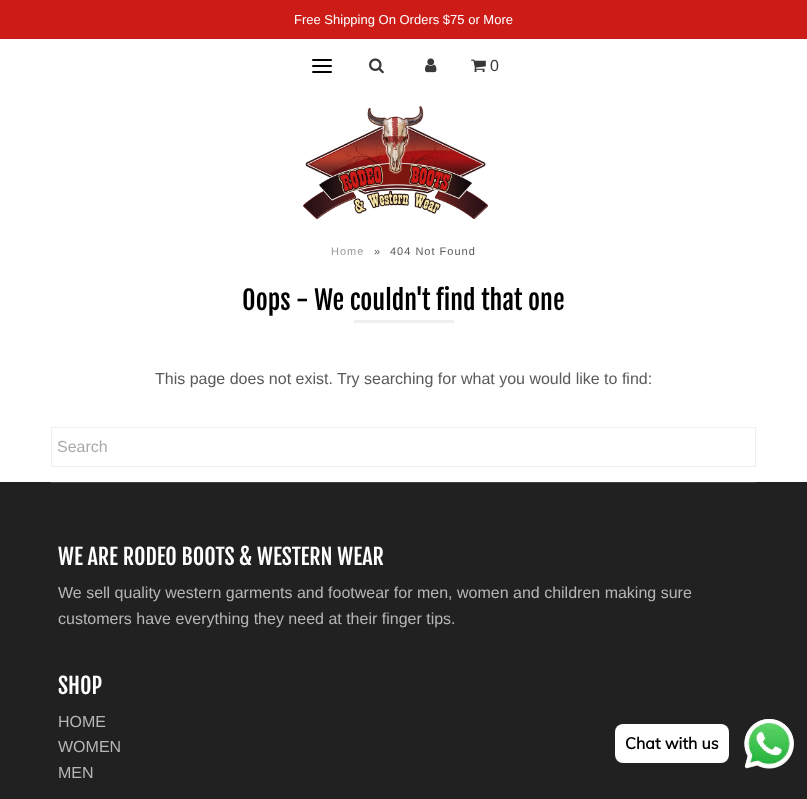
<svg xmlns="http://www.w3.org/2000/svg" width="807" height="799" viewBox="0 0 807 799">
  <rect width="100%" height="100%" fill="#ffffff"/>
  <rect x="0" y="0" width="807" height="39" fill="#cd1c18"/>
  <text x="294" y="24" font-family="Liberation Sans" font-size="13" fill="#ffffff">Free Shipping On Orders $75 or More</text>
  <rect x="312" y="65" width="20" height="2" rx="1" fill="#000000"/>
  <rect x="312" y="59" width="20" height="2" rx="1" fill="#000000"/>
  <rect x="312" y="71" width="20" height="2" rx="1" fill="#000000"/>
  <image x="369" y="58" width="15" height="16" href="img1.png"/>
  <image x="425" y="58" width="12" height="15" href="img2.png"/>
  <image x="471" y="59" width="15" height="14" href="img3.png"/>
  <text x="490" y="71" font-family="Liberation Sans" font-size="16" fill="#383838">0</text>
  <image x="303" y="106" width="185" height="113" href="img4.png"/>
  <text x="331" y="255" font-family="Liberation Sans" font-size="11" letter-spacing="1" fill="#999999">Home</text>
  <text x="374" y="255" font-family="Liberation Sans" font-size="11" letter-spacing="1" fill="#5a5a5a">»</text>
  <text x="390" y="255" font-family="Liberation Sans" font-size="11" letter-spacing="1" fill="#5a5a5a">404 Not Found</text>
  <text x="242" y="310" font-family="Fjalla One" font-size="26" fill="#000000">Oops - We couldn't find that one</text>
  <rect x="354" y="320" width="100" height="3" fill="#eeeeee"/>
  <text x="155" y="384" font-family="Liberation Sans" font-size="16" fill="#5a5a5a">This page does not exist. Try searching for what you would like to find:</text>
  <rect x="51.5" y="427.5" width="704" height="39" fill="none" stroke="#eeeeee"/>
  <text x="57" y="452" font-family="Liberation Sans" font-size="16" fill="#aaaaaa">Search</text>
  <rect x="0" y="482" width="807" height="317" fill="#212121"/>
  <rect x="51" y="482" width="705" height="1" fill="#434343"/>
  <text x="58" y="565" font-family="Fjalla One" font-size="22" fill="#ffffff">WE ARE RODEO BOOTS &amp; WESTERN WEAR</text>
  <text x="58" y="598" font-family="Liberation Sans" font-size="16" fill="#b6b6b6">We sell quality western garments and footwear for men, women and children making sure</text>
  <text x="58" y="624" font-family="Liberation Sans" font-size="16" fill="#b6b6b6">customers have everything they need at their finger tips.</text>
  <text x="58" y="694" font-family="Fjalla One" font-size="22" fill="#ffffff">SHOP</text>
  <text x="58" y="727" font-family="Liberation Sans" font-size="16" fill="#b6b6b6">HOME</text>
  <text x="58" y="752" font-family="Liberation Sans" font-size="16" fill="#b6b6b6">WOMEN</text>
  <text x="58" y="778" font-family="Liberation Sans" font-size="16" fill="#b6b6b6">MEN</text>
  <image x="744" y="719" width="50" height="50" href="img5.png"/>
  <rect x="615" y="724" width="114" height="39" rx="8" fill="#ffffff"/>
  <text x="625" y="749" font-family="Muli" font-size="16" font-weight="bold" fill="#000000">Chat with us</text>
</svg>
